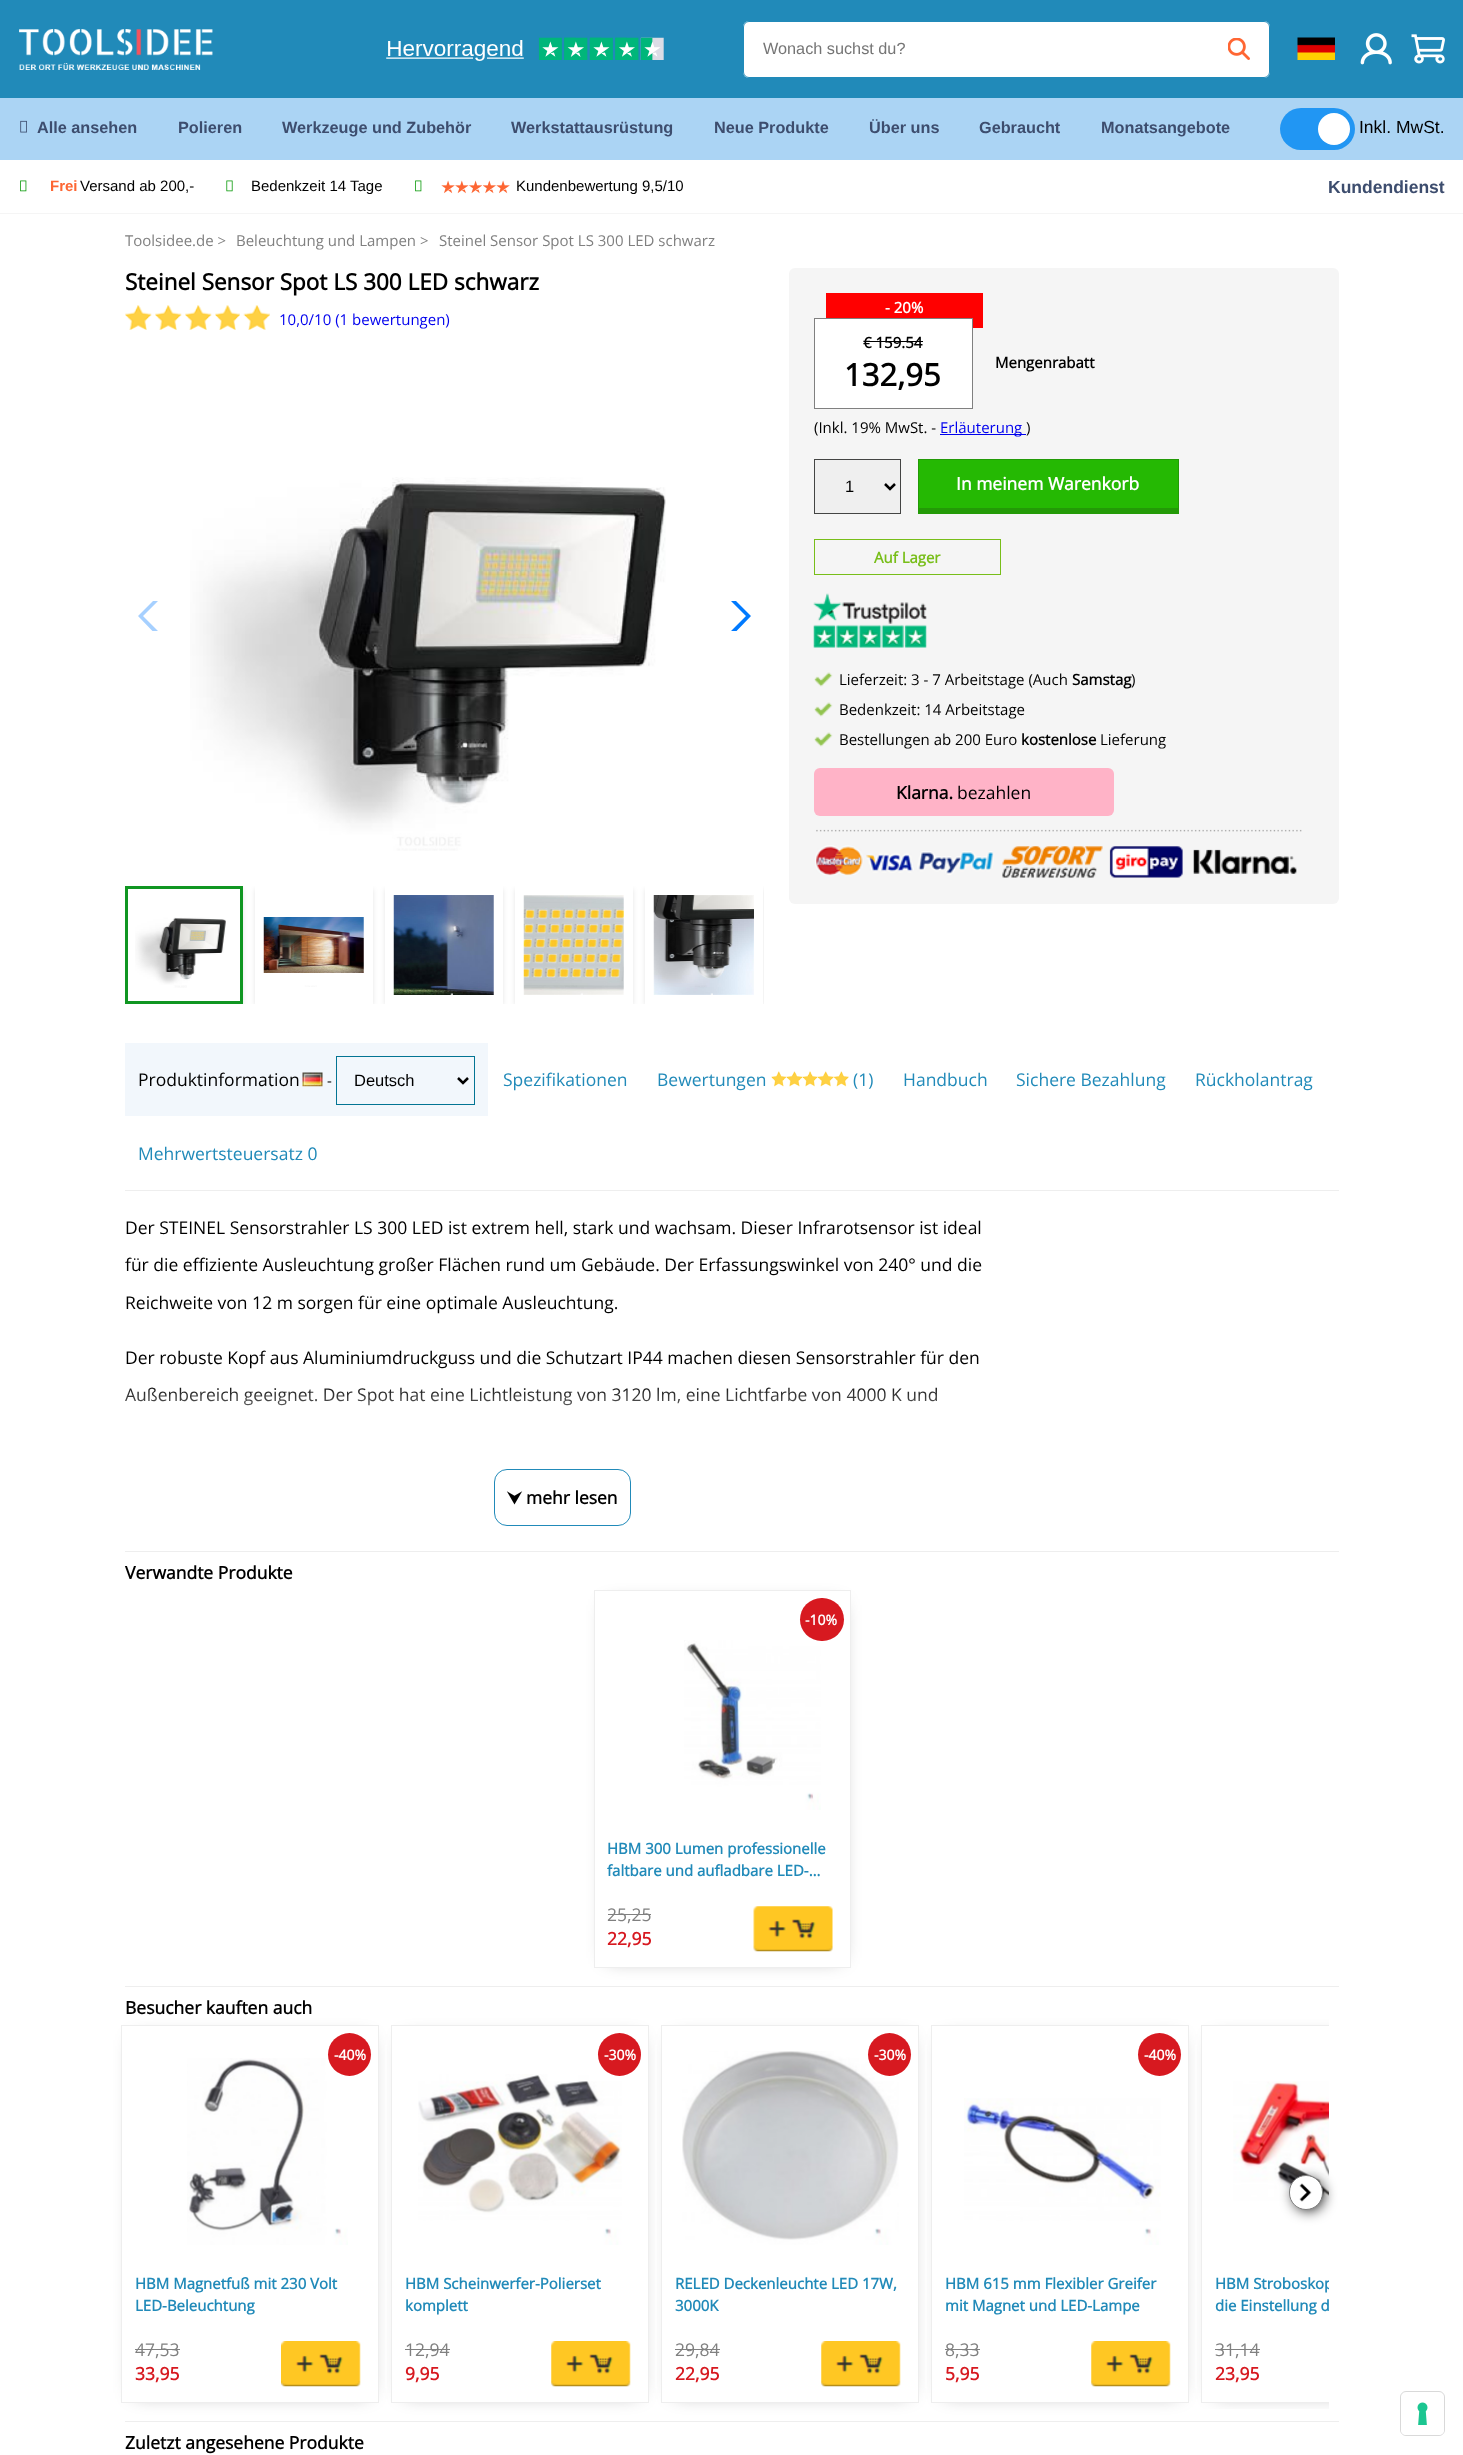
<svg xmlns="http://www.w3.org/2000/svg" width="1463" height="2455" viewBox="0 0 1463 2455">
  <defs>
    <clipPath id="clip1"><rect x="138" y="601" width="33" height="30"/></clipPath>
    <clipPath id="clip2"><rect x="718" y="601" width="33" height="30"/></clipPath>
    <clipPath id="clip3"><rect x="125" y="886" width="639" height="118"/></clipPath>
    <filter id="blur1" x="-50%" y="-200%" width="200%" height="500%"><feGaussianBlur stdDeviation="2.5"/></filter>
    <linearGradient id="g1" gradientUnits="userSpaceOnUse" x1="563" y1="1381" x2="563" y2="1451"><stop offset="0" stop-color="#ffffff" stop-opacity="0"/><stop offset="1" stop-color="#ffffff"/></linearGradient>
    <clipPath id="clip4"><path d="M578 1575H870V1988H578ZM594 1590H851V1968H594Z" clip-rule="evenodd"/></clipPath>
    <filter id="blur2" x="-50%" y="-200%" width="200%" height="500%"><feGaussianBlur stdDeviation="9.5"/></filter>
    <clipPath id="clip5"><path d="M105 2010H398V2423H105ZM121 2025H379V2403H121Z" clip-rule="evenodd"/></clipPath>
    <clipPath id="clip6"><path d="M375 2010H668V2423H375ZM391 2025H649V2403H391Z" clip-rule="evenodd"/></clipPath>
    <clipPath id="clip7"><path d="M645 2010H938V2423H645ZM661 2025H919V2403H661Z" clip-rule="evenodd"/></clipPath>
    <clipPath id="clip8"><path d="M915 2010H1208V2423H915ZM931 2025H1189V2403H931Z" clip-rule="evenodd"/></clipPath>
    <clipPath id="clip9"><rect x="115" y="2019" width="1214" height="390"/></clipPath>
    <clipPath id="clip10"><path d="M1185 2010H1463V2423H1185ZM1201 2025H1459V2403H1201Z" clip-rule="evenodd"/></clipPath>
    <clipPath id="clip11"><rect x="115" y="2019" width="1214" height="390"/></clipPath>
    <clipPath id="clip12"><rect x="1215" y="2273" width="114" height="50"/></clipPath>
    <filter id="blur3" x="-50%" y="-200%" width="200%" height="500%"><feGaussianBlur stdDeviation="7"/></filter>
  </defs>
  <rect width="100%" height="100%" fill="#ffffff"/>
  <rect x="0" y="0" width="1463" height="98" fill="#218ab9"/>
  <image x="19" y="29" width="194" height="41" href="img1.png"/>
  <image x="386" y="37" width="278" height="24" href="img2.png"/>
  <rect x="743" y="21" width="527" height="57" rx="6" fill="#ffffff"/>
  <image x="1228" y="38" width="22" height="22" href="img3.png"/>
  <rect x="743.5" y="21.5" width="526" height="56" rx="5.5" fill="none" stroke="#218ab9"/>
  <text x="763" y="54" font-family="Liberation Sans" font-size="16.25" fill="#757575">Wonach suchst du?</text>
  <image x="1297" y="37" width="38" height="23" href="img4.png"/>
  <image x="1360" y="33" width="32" height="32" href="img5.png"/>
  <image x="1411" y="34" width="34" height="30" href="img6.png"/>
  <rect x="0" y="98" width="1463" height="62" fill="#abd4f4"/>
  <image x="20" y="120" width="7" height="13" href="img7.png"/>
  <text x="37" y="133" font-family="Liberation Sans" font-size="16.25" font-weight="bold" fill="#3d4d6e">Alle ansehen</text>
  <text x="178" y="133" font-family="Liberation Sans" font-size="16.25" font-weight="bold" fill="#3d4d6e">Polieren</text>
  <text x="282" y="133" font-family="Liberation Sans" font-size="16.25" font-weight="bold" fill="#3d4d6e">Werkzeuge und Zubehör</text>
  <text x="511" y="133" font-family="Liberation Sans" font-size="16.25" font-weight="bold" fill="#3d4d6e">Werkstattausrüstung</text>
  <text x="714" y="133" font-family="Liberation Sans" font-size="16.25" font-weight="bold" fill="#3d4d6e">Neue Produkte</text>
  <text x="869" y="133" font-family="Liberation Sans" font-size="16.25" font-weight="bold" fill="#3d4d6e">Über uns</text>
  <text x="979" y="133" font-family="Liberation Sans" font-size="16.25" font-weight="bold" fill="#3d4d6e">Gebraucht</text>
  <text x="1101" y="133" font-family="Liberation Sans" font-size="16.25" font-weight="bold" fill="#3d4d6e">Monatsangebote</text>
  <rect x="1280" y="108" width="75" height="42" rx="21" fill="#2196f3"/>
  <circle cx="1334" cy="129" r="16" fill="#ffffff"/>
  <text x="1359" y="133" font-family="Liberation Sans" font-size="17.5" fill="#000000">Inkl. MwSt.</text>
  <rect x="0" y="213" width="1463" height="1" fill="#f5f5f5"/>
  <image x="20" y="180" width="7" height="12" href="img8.png"/>
  <text x="50" y="191" font-family="Liberation Sans" font-size="15" font-weight="bold" fill="#fd6633">Frei</text>
  <text x="80" y="191" font-family="Liberation Sans" font-size="15" fill="#000000">Versand ab 200,-</text>
  <image x="226" y="180" width="7" height="12" href="img9.png"/>
  <text x="251" y="191" font-family="Liberation Sans" font-size="15" fill="#000000">Bedenkzeit 14 Tage</text>
  <image x="415" y="180" width="7" height="12" href="img8.png"/>
  <image x="441" y="180" width="14" height="14" href="img10.png"/>
  <image x="455" y="180" width="14" height="14" href="img11.png"/>
  <image x="469" y="180" width="14" height="14" href="img12.png"/>
  <image x="483" y="180" width="13" height="14" href="img13.png"/>
  <image x="496" y="180" width="14" height="14" href="img10.png"/>
  <text x="516" y="191" font-family="Liberation Sans" font-size="15" fill="#000000">Kundenbewertung 9,5/10</text>
  <text x="1328" y="193" font-family="Liberation Sans" font-size="17.5" font-weight="bold" fill="#3d4d6e">Kundendienst</text>
  <text x="125" y="246" font-family="Open Sans" font-size="15" fill="#808080">Toolsidee.de &gt;</text>
  <text x="236" y="246" font-family="Open Sans" font-size="15" fill="#808080">Beleuchtung und Lampen &gt;</text>
  <text x="439" y="246" font-family="Open Sans" font-size="15" fill="#808080">Steinel Sensor Spot LS 300 LED schwarz</text>
  <text x="125" y="290" font-family="Open Sans" font-size="22.5" font-weight="bold" fill="#000000">Steinel Sensor Spot LS 300 LED schwarz</text>
  <image x="125" y="305" width="27" height="25" href="img14.png"/>
  <image x="155" y="305" width="27" height="25" href="img14.png"/>
  <image x="185" y="305" width="27" height="25" href="img14.png"/>
  <image x="215" y="305" width="25" height="25" href="img15.png"/>
  <image x="243" y="305" width="27" height="25" href="img16.png"/>
  <text x="279" y="325" font-family="Open Sans" font-size="15" fill="#0000ee">10,0/10 (1 bewertungen)</text>
  <rect x="789" y="268" width="550" height="636" rx="6" fill="#f5f5f5"/>
  <rect x="826" y="293" width="157" height="35" fill="#ff0000"/>
  <text x="885" y="313" font-family="Open Sans" font-size="15" font-weight="bold" fill="#ffffff">- 20%</text>
  <rect x="814.5" y="318.5" width="158" height="90" fill="#ffffff" stroke="#808080"/>
  <text x="863" y="348" font-family="Open Sans" font-size="15" font-weight="bold" fill="#000000">€ 159.54</text>
  <rect x="864" y="341" width="59" height="1" fill="#000000"/>
  <text x="844" y="386" font-family="Open Sans" font-size="31" font-weight="bold" fill="#000000">132,95</text>
  <text x="814" y="433" font-family="Open Sans" font-size="15" fill="#000000">(Inkl. 19% MwSt. -</text>
  <rect x="940" y="434" width="86" height="1" fill="#0000ee"/>
  <text x="940" y="433" font-family="Open Sans" font-size="15" fill="#0000ee">Erläuterung</text>
  <text x="1026" y="433" font-family="Open Sans" font-size="15" fill="#000000">)</text>
  <text x="995" y="368" font-family="Open Sans" font-size="15" font-weight="bold" fill="#000000">Mengenrabatt</text>
  <rect x="814.5" y="459.5" width="86" height="54" fill="#efefef" stroke="#444544"/>
  <path d="M885 484L890 489L895 484" fill="none" stroke="#000000" stroke-width="2.5"/>
  <text x="845" y="492" font-family="Liberation Sans" font-size="16.5" fill="#000000">1</text>
  <rect x="919" y="460" width="259" height="48" fill="#25b903"/>
  <rect x="918" y="459" width="261" height="1" fill="#239a07"/>
  <rect x="1178" y="459" width="1" height="55" fill="#239a07"/>
  <rect x="918" y="508" width="261" height="6" fill="#239a07"/>
  <rect x="918" y="459" width="1" height="55" fill="#239a07"/>
  <text x="956" y="490" font-family="Open Sans" font-size="17.5" font-weight="bold" fill="#ffffff">In meinem Warenkorb</text>
  <rect x="814.5" y="539.5" width="186" height="35" fill="none" stroke="#78be19"/>
  <text x="874" y="563" font-family="Open Sans" font-size="15" font-weight="bold" fill="#78be19">Auf Lager</text>
  <image x="813" y="593" width="114" height="55" href="img17.png"/>
  <image x="814" y="672" width="19" height="15" href="img18.png"/>
  <text x="839" y="685" font-family="Open Sans" font-size="15" fill="#000000">Lieferzeit: 3 - 7 Arbeitstage (Auch</text>
  <text x="1072" y="685" font-family="Open Sans" font-size="15" font-weight="bold" fill="#000000">Samstag</text>
  <text x="1131" y="685" font-family="Open Sans" font-size="15" fill="#000000">)</text>
  <image x="814" y="702" width="19" height="15" href="img18.png"/>
  <text x="839" y="715" font-family="Open Sans" font-size="15" fill="#000000">Bedenkzeit: 14 Arbeitstage</text>
  <image x="814" y="732" width="19" height="15" href="img18.png"/>
  <text x="839" y="745" font-family="Open Sans" font-size="15" fill="#000000">Bestellungen ab 200 Euro</text>
  <text x="1021" y="745" font-family="Open Sans" font-size="15" font-weight="bold" fill="#000000">kostenlose</text>
  <text x="1100" y="745" font-family="Open Sans" font-size="15" fill="#000000">Lieferung</text>
  <rect x="814" y="768" width="300" height="48" rx="6" fill="#ffb3c7"/>
  <text x="896" y="799" font-family="Open Sans" font-size="17.5" font-weight="bold" fill="#000000">Klarna.</text>
  <text x="957" y="799" font-family="Open Sans" font-size="17.5" fill="#000000">bezahlen</text>
  <image x="815" y="829" width="487" height="49" href="img19.png"/>
  <g clip-path="url(#clip1)">
    <path d="M138 616L165 589L168 591L143 616L168 641L165 644Z" fill="#a6d0ff"/>
  </g>
  <image x="190" y="477" width="476" height="374" href="img20.png"/>
  <g clip-path="url(#clip2)">
    <path d="M751 616L724 644L721 641L746 616L721 591L724 589Z" fill="#007aff"/>
  </g>
  <g clip-path="url(#clip3)">
    <rect x="125" y="889" width="118" height="117" fill="#000000" fill-opacity="0.1" filter="url(#blur1)"/>
  </g>
  <rect x="126.5" y="887.5" width="115" height="115" fill="#ffffff" stroke="#109622" stroke-width="3"/>
  <image x="135" y="917" width="91" height="71" href="img21.png"/>
  <g clip-path="url(#clip3)">
    <rect x="255" y="889" width="118" height="117" fill="#000000" fill-opacity="0.1" filter="url(#blur1)"/>
  </g>
  <rect x="255" y="886" width="118" height="118" fill="#ffffff"/>
  <image x="263" y="917" width="101" height="70" href="img22.png"/>
  <g clip-path="url(#clip3)">
    <rect x="385" y="889" width="118" height="117" fill="#000000" fill-opacity="0.1" filter="url(#blur1)"/>
  </g>
  <rect x="385" y="886" width="118" height="118" fill="#ffffff"/>
  <image x="393" y="895" width="101" height="100" href="img23.png"/>
  <g clip-path="url(#clip3)">
    <rect x="515" y="889" width="118" height="117" fill="#000000" fill-opacity="0.1" filter="url(#blur1)"/>
  </g>
  <rect x="515" y="886" width="118" height="118" fill="#ffffff"/>
  <image x="523" y="895" width="101" height="100" href="img24.png"/>
  <g clip-path="url(#clip3)">
    <rect x="645" y="889" width="118" height="117" fill="#000000" fill-opacity="0.1" filter="url(#blur1)"/>
  </g>
  <rect x="645" y="886" width="118" height="118" fill="#ffffff"/>
  <image x="653" y="895" width="101" height="100" href="img25.png"/>
  <rect x="125" y="1190" width="1214" height="1" fill="#eeeeee"/>
  <rect x="125" y="1043" width="363" height="73" fill="#f2f7fc"/>
  <text x="138" y="1086" font-family="Open Sans" font-size="17.5" fill="#000000">Produktinformation</text>
  <image x="302" y="1072" width="21" height="15" href="img26.png"/>
  <text x="327" y="1086" font-family="Open Sans" font-size="15" fill="#000000">-</text>
  <rect x="336.5" y="1056.5" width="138" height="48" fill="none" stroke="#037594"/>
  <path d="M458 1078L463 1083L468 1078" fill="none" stroke="#000000" stroke-width="2.5"/>
  <text x="354" y="1086" font-family="Liberation Sans" font-size="16.5" fill="#000000">Deutsch</text>
  <text x="503" y="1086" font-family="Open Sans" font-size="17.5" fill="#218ab9">Spezifikationen</text>
  <text x="657" y="1086" font-family="Open Sans" font-size="17.5" fill="#218ab9">Bewertungen</text>
  <image x="771" y="1071" width="16" height="16" href="img27.png"/>
  <image x="786" y="1071" width="17" height="16" href="img28.png"/>
  <image x="802" y="1071" width="16" height="16" href="img29.png"/>
  <image x="817" y="1071" width="17" height="16" href="img30.png"/>
  <image x="833" y="1071" width="16" height="16" href="img31.png"/>
  <text x="853" y="1086" font-family="Open Sans" font-size="17.5" fill="#218ab9">(1)</text>
  <text x="903" y="1086" font-family="Open Sans" font-size="17.5" fill="#218ab9">Handbuch</text>
  <text x="1016" y="1086" font-family="Open Sans" font-size="17.5" fill="#218ab9">Sichere Bezahlung</text>
  <text x="1195" y="1086" font-family="Open Sans" font-size="17.5" fill="#218ab9">Rückholantrag</text>
  <text x="138" y="1160" font-family="Open Sans" font-size="17.5" fill="#218ab9">Mehrwertsteuersatz 0</text>
  <text x="125" y="1234" font-family="Open Sans" font-size="17.5" fill="#000000">Der STEINEL Sensorstrahler LS 300 LED ist extrem hell, stark und wachsam. Dieser Infrarotsensor ist ideal</text>
  <text x="125" y="1271" font-family="Open Sans" font-size="17.5" fill="#000000">für die effiziente Ausleuchtung großer Flächen rund um Gebäude. Der Erfassungswinkel von 240° und die</text>
  <text x="125" y="1309" font-family="Open Sans" font-size="17.5" fill="#000000">Reichweite von 12 m sorgen für eine optimale Ausleuchtung.</text>
  <text x="125" y="1364" font-family="Open Sans" font-size="17.5" fill="#000000">Der robuste Kopf aus Aluminiumdruckguss und die Schutzart IP44 machen diesen Sensorstrahler für den</text>
  <text x="125" y="1401" font-family="Open Sans" font-size="17.5" fill="#000000">Außenbereich geeignet. Der Spot hat eine Lichtleistung von 3120 lm, eine Lichtfarbe von 4000 K und</text>
  <rect x="125" y="1387" width="812" height="19" fill="url(#g1)"/>
  <rect x="494.5" y="1469.5" width="136" height="56" rx="12.5" fill="none" stroke="#218ab9"/>
  <text x="507" y="1504" font-family="FreeSans" font-size="17.5" font-weight="bold" fill="#000000">⮟</text>
  <text x="526" y="1504" font-family="Open Sans" font-size="17.5" font-weight="bold" fill="#000000">mehr lesen</text>
  <rect x="125" y="1551" width="1214" height="1" fill="#eeeeee"/>
  <text x="125" y="1579" font-family="Open Sans" font-size="17.5" font-weight="bold" fill="#000000">Verwandte Produkte</text>
  <rect x="125" y="1986" width="1214" height="1" fill="#eeeeee"/>
  <g clip-path="url(#clip4)">
    <rect x="608" y="1605" width="232" height="353" fill="#000000" fill-opacity="0.44" filter="url(#blur2)"/>
  </g>
  <rect x="594.5" y="1590.5" width="256" height="377" fill="none" stroke="#eeeeee"/>
  <image x="684" y="1640" width="137" height="170" href="img32.png"/>
  <rect x="800" y="1598" width="44" height="43" rx="21.5" fill="#d71920"/>
  <text x="805" y="1625" font-family="Open Sans" font-size="14" font-weight="bold" fill="#ffffff">-10%</text>
  <text x="607" y="1854" font-family="Open Sans" font-size="15" font-weight="bold" fill="#218ab9">HBM 300 Lumen professionelle</text>
  <text x="607" y="1876" font-family="Open Sans" font-size="15" font-weight="bold" fill="#218ab9">faltbare und aufladbare LED-…</text>
  <text x="607" y="1921" font-family="Open Sans" font-size="17.5" fill="#808080">25,25</text>
  <rect x="608" y="1914" width="43" height="1" fill="#808080"/>
  <text x="607" y="1945" font-family="Open Sans" font-size="17.5" font-weight="bold" fill="#d71920">22,95</text>
  <image x="753" y="1906" width="80" height="46" href="img33.png"/>
  <text x="125" y="2014" font-family="Open Sans" font-size="17.5" font-weight="bold" fill="#000000">Besucher kauften auch</text>
  <rect x="125" y="2421" width="1214" height="1" fill="#eeeeee"/>
  <g clip-path="url(#clip5)">
    <rect x="135" y="2040" width="233" height="353" fill="#000000" fill-opacity="0.44" filter="url(#blur2)"/>
  </g>
  <rect x="121.5" y="2025.5" width="257" height="377" fill="none" stroke="#eeeeee"/>
  <image x="187" y="2058" width="161" height="187" href="img34.png"/>
  <circle cx="349.5" cy="2054.5" r="21.5" fill="#d71920"/>
  <text x="334" y="2060" font-family="Open Sans" font-size="14" font-weight="bold" fill="#ffffff">-40%</text>
  <text x="135" y="2289" font-family="Open Sans" font-size="15" font-weight="bold" fill="#218ab9">HBM Magnetfuß mit 230 Volt</text>
  <text x="135" y="2311" font-family="Open Sans" font-size="15" font-weight="bold" fill="#218ab9">LED-Beleuchtung</text>
  <text x="135" y="2356" font-family="Open Sans" font-size="17.5" fill="#808080">47,53</text>
  <rect x="135" y="2349" width="45" height="1" fill="#808080"/>
  <text x="135" y="2380" font-family="Open Sans" font-size="17.5" font-weight="bold" fill="#d71920">33,95</text>
  <image x="281" y="2341" width="80" height="46" href="img35.png"/>
  <rect x="385" y="2045" width="2" height="343" fill="#ffffff"/>
  <g clip-path="url(#clip6)">
    <rect x="405" y="2040" width="233" height="353" fill="#000000" fill-opacity="0.44" filter="url(#blur2)"/>
  </g>
  <rect x="391.5" y="2025.5" width="257" height="377" fill="none" stroke="#eeeeee"/>
  <image x="418" y="2074" width="204" height="171" href="img36.png"/>
  <circle cx="619.5" cy="2054.5" r="21.5" fill="#d71920"/>
  <text x="604" y="2060" font-family="Open Sans" font-size="14" font-weight="bold" fill="#ffffff">-30%</text>
  <text x="405" y="2289" font-family="Open Sans" font-size="15" font-weight="bold" fill="#218ab9">HBM Scheinwerfer-Polierset</text>
  <text x="405" y="2311" font-family="Open Sans" font-size="15" font-weight="bold" fill="#218ab9">komplett</text>
  <text x="405" y="2356" font-family="Open Sans" font-size="17.5" fill="#808080">12,94</text>
  <rect x="405" y="2349" width="45" height="1" fill="#808080"/>
  <text x="405" y="2380" font-family="Open Sans" font-size="17.5" font-weight="bold" fill="#d71920">9,95</text>
  <image x="551" y="2341" width="80" height="46" href="img37.png"/>
  <rect x="655" y="2045" width="2" height="343" fill="#ffffff"/>
  <g clip-path="url(#clip7)">
    <rect x="675" y="2040" width="233" height="353" fill="#000000" fill-opacity="0.44" filter="url(#blur2)"/>
  </g>
  <rect x="661.5" y="2025.5" width="257" height="377" fill="none" stroke="#eeeeee"/>
  <image x="682" y="2051" width="217" height="194" href="img38.png"/>
  <circle cx="889.5" cy="2054.5" r="21.5" fill="#d71920"/>
  <text x="874" y="2060" font-family="Open Sans" font-size="14" font-weight="bold" fill="#ffffff">-30%</text>
  <text x="675" y="2289" font-family="Open Sans" font-size="15" font-weight="bold" fill="#218ab9">RELED Deckenleuchte LED 17W,</text>
  <text x="675" y="2311" font-family="Open Sans" font-size="15" font-weight="bold" fill="#218ab9">3000K</text>
  <text x="675" y="2356" font-family="Open Sans" font-size="17.5" fill="#808080">29,84</text>
  <rect x="675" y="2349" width="45" height="1" fill="#808080"/>
  <text x="675" y="2380" font-family="Open Sans" font-size="17.5" font-weight="bold" fill="#d71920">22,95</text>
  <image x="821" y="2341" width="80" height="46" href="img39.png"/>
  <rect x="925" y="2045" width="2" height="343" fill="#ffffff"/>
  <g clip-path="url(#clip8)">
    <rect x="945" y="2040" width="233" height="353" fill="#000000" fill-opacity="0.44" filter="url(#blur2)"/>
  </g>
  <rect x="931.5" y="2025.5" width="257" height="377" fill="none" stroke="#eeeeee"/>
  <circle cx="1159.5" cy="2054.5" r="21.5" fill="#d71920"/>
  <text x="1144" y="2060" font-family="Open Sans" font-size="14" font-weight="bold" fill="#ffffff">-40%</text>
  <image x="964" y="2098" width="197" height="147" href="img40.png"/>
  <text x="945" y="2289" font-family="Open Sans" font-size="15" font-weight="bold" fill="#218ab9">HBM 615 mm Flexibler Greifer</text>
  <text x="945" y="2311" font-family="Open Sans" font-size="15" font-weight="bold" fill="#218ab9">mit Magnet und LED-Lampe</text>
  <text x="945" y="2356" font-family="Open Sans" font-size="17.5" fill="#808080">8,33</text>
  <rect x="945" y="2349" width="35" height="1" fill="#808080"/>
  <text x="945" y="2380" font-family="Open Sans" font-size="17.5" font-weight="bold" fill="#d71920">5,95</text>
  <image x="1091" y="2341" width="80" height="46" href="img37.png"/>
  <rect x="1195" y="2045" width="2" height="343" fill="#ffffff"/>
  <g clip-path="url(#clip9)">
    <g clip-path="url(#clip10)">
      <rect x="1215" y="2040" width="233" height="353" fill="#000000" fill-opacity="0.44" filter="url(#blur2)"/>
    </g>
  </g>
  <g clip-path="url(#clip11)">
    <rect x="1201.5" y="2025.5" width="257" height="377" fill="none" stroke="#eeeeee"/>
  </g>
  <image x="1233" y="2081" width="96" height="121" href="img41.png"/>
  <g clip-path="url(#clip12)">
    <text x="1215" y="2289" font-family="Open Sans" font-size="15" font-weight="bold" fill="#218ab9">HBM Stroboskop</text>
  </g>
  <text x="1215" y="2311" font-family="Open Sans" font-size="15" font-weight="bold" fill="#218ab9">die Einstellung d</text>
  <text x="1215" y="2356" font-family="Open Sans" font-size="17.5" fill="#808080">31,14</text>
  <rect x="1215" y="2349" width="45" height="1" fill="#808080"/>
  <text x="1215" y="2380" font-family="Open Sans" font-size="17.5" font-weight="bold" fill="#d71920">23,95</text>
  <rect x="1294" y="2180" width="29" height="30" rx="14.5" fill="#000000" filter="url(#blur3)"/>
  <rect x="1289.5" y="2175.5" width="33" height="34" rx="16.5" fill="#ffffff" stroke="#808080"/>
  <image x="1299" y="2183" width="13" height="19" href="img42.png"/>
  <text x="125" y="2449" font-family="Open Sans" font-size="17.5" font-weight="bold" fill="#000000">Zuletzt angesehene Produkte</text>
  <rect x="1400.5" y="2391.5" width="44" height="44" rx="5.5" fill="none" stroke="#d9d9d9"/>
  <rect x="1401" y="2393" width="43" height="42" rx="5" fill="#ffffff"/>
  <image x="1417" y="2402" width="11" height="23" href="img43.png"/>
</svg>
